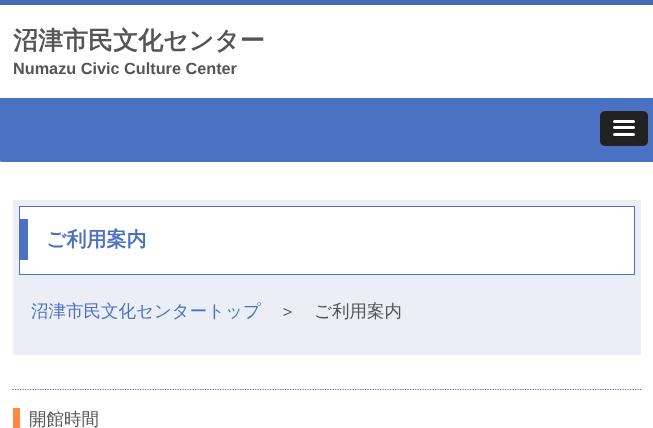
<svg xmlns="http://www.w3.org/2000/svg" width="653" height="428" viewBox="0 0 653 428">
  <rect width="100%" height="100%" fill="#ffffff"/>
  <rect x="0" y="0" width="653" height="5" fill="#476cb4"/>
  <text x="13" y="49" font-family="WenQuanYi Zen Hei" font-size="25" font-weight="bold" fill="#555555">沼津市民文化センター</text>
  <text x="13" y="74" font-family="Liberation Sans" font-size="16.25" font-weight="bold" fill="#555555">Numazu Civic Culture Center</text>
  <rect x="0" y="98" width="653" height="64" fill="#4b72c2"/>
  <rect x="0" y="161" width="1" height="1" fill="#b6c6e6"/>
  <rect x="600" y="111" width="48" height="35" rx="5" fill="#222222"/>
  <path d="M613 122.5C612.5 124.5 616.5 124 617.5 124H630.5C631 124 636 124.5 635 122L634 122.5C632 122.5 613.5 122.5 613 122.5Z" fill="#1a1a1a"/>
  <rect x="613" y="120" width="22" height="3" rx="1.5" fill="#ffffff"/>
  <path d="M613.5 128.5C611.5 131.5 617 131 617.5 131H624C626 131 634 131.5 634.5 130.5C635 129.5 635 129 634.5 128.5C634 129 614.5 129 613.5 128.5Z" fill="#1a1a1a"/>
  <rect x="613" y="126" width="22" height="3" rx="1.5" fill="#ffffff"/>
  <path d="M613 135C612 137.5 617 137 617.5 137H630.5C630.5 137 637 137.5 634.5 134.5L634 135Z" fill="#1a1a1a"/>
  <rect x="613" y="133" width="22" height="3" rx="1.5" fill="#ffffff"/>
  <rect x="13" y="200" width="628" height="155" fill="#ebeef5"/>
  <rect x="19.5" y="206.5" width="615" height="68" fill="#ffffff" stroke="#4b72c2"/>
  <rect x="20" y="219" width="8" height="41" fill="#4b72c2"/>
  <text x="46" y="246" font-family="WenQuanYi Zen Hei" font-size="20" font-weight="bold" fill="#4b72c2">ご利用案内</text>
  <text x="31" y="317" font-family="WenQuanYi Zen Hei" font-size="17.5" font-weight="500" fill="#4b72c2">沼津市民文化センタートップ</text>
  <text x="279" y="317" font-family="WenQuanYi Zen Hei" font-size="17.5" font-weight="500" fill="#555555">＞</text>
  <text x="314" y="317" font-family="WenQuanYi Zen Hei" font-size="17.5" font-weight="500" fill="#555555">ご利用案内</text>
  <path d="M12.5 389.5H641" fill="none" stroke="#4b72c2" stroke-width="1.2" stroke-dasharray="1.25 1.25"/>
  <rect x="13" y="408" width="7" height="20" fill="#ff8742"/>
  <text x="29" y="425" font-family="WenQuanYi Zen Hei" font-size="17.5" font-weight="500" fill="#555555">開館時間</text>
</svg>
